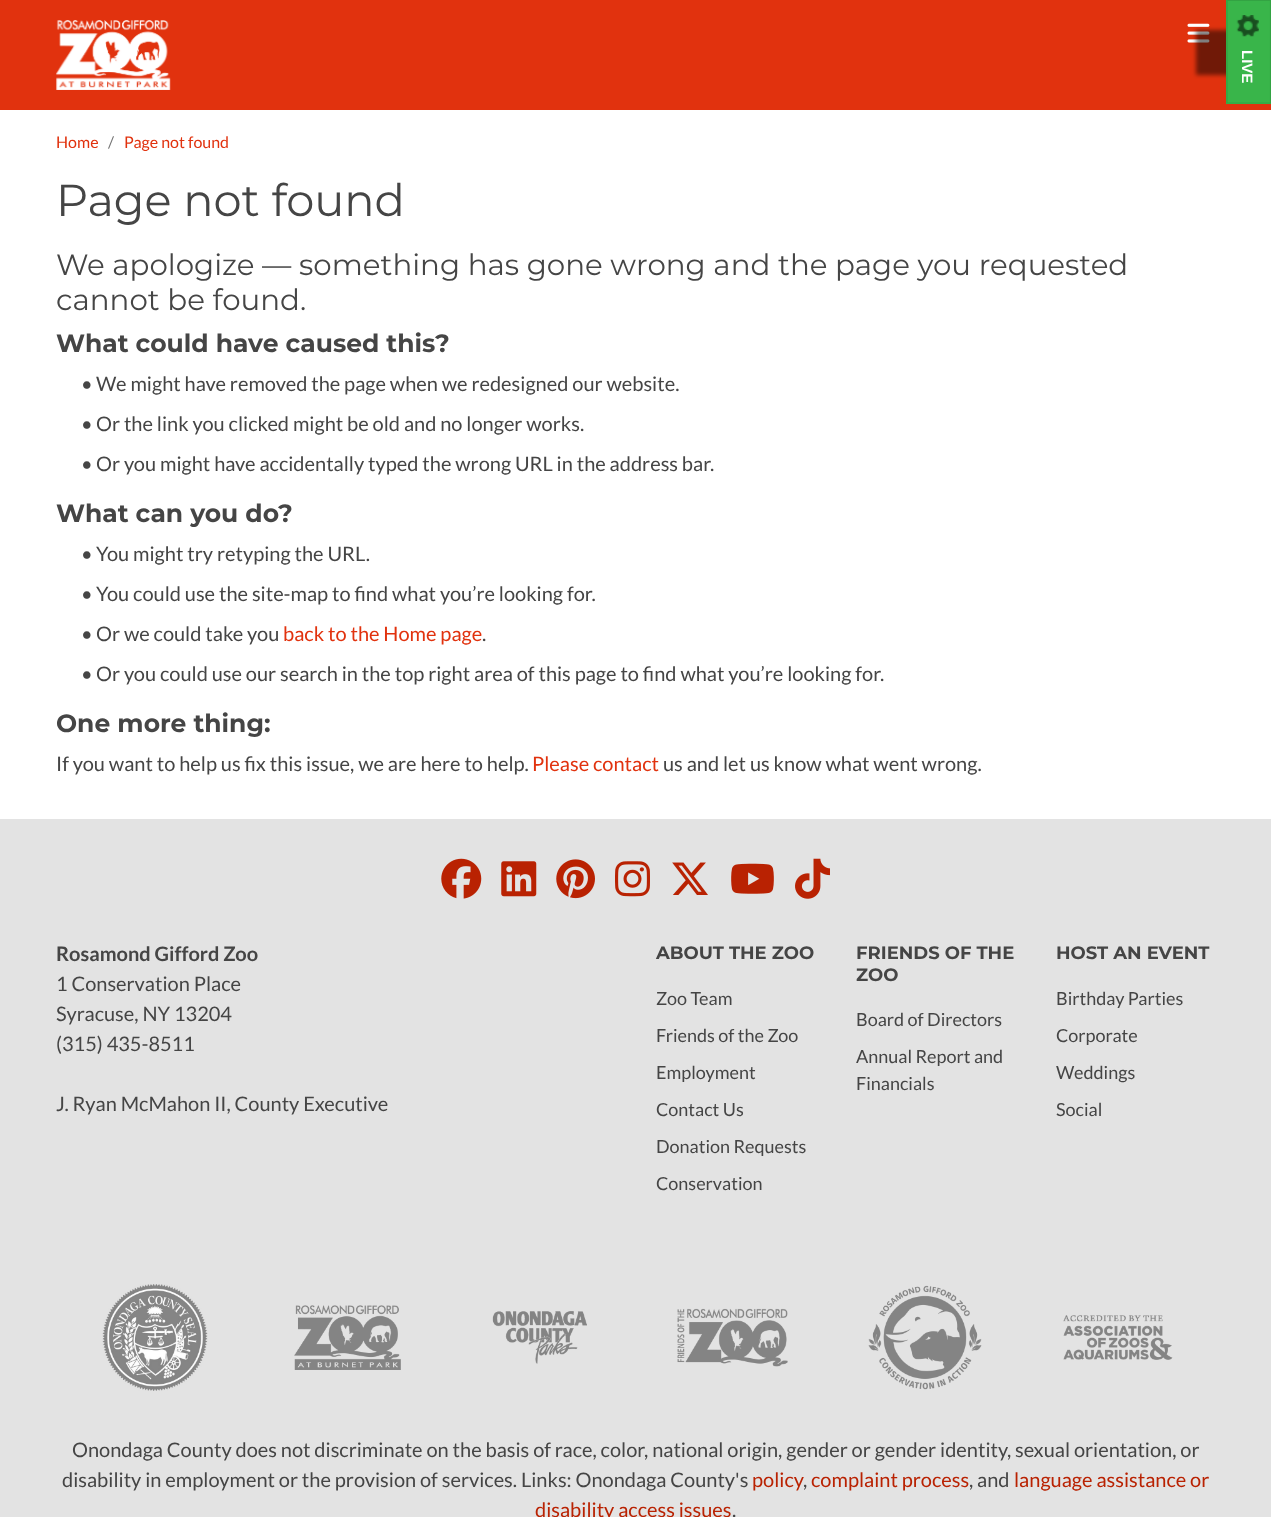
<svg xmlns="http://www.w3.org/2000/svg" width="1271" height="1517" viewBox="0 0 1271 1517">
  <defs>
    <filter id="blur1" x="-50%" y="-200%" width="200%" height="500%"><feGaussianBlur stdDeviation="2"/></filter>
    <clipPath id="clip1"><path d="M1271 0V104H1226V0Z"/></clipPath>
  </defs>
  <rect width="100%" height="100%" fill="#ffffff"/>
  <rect x="0" y="0" width="1271" height="110" fill="#e1320e"/>
  <image x="1187" y="23" width="23" height="20" href="img3.png"/>
  <rect x="1196" y="30" width="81" height="45" fill="#000000" fill-opacity="0.5" filter="url(#blur1)"/>
  <rect x="1226" y="0" width="45" height="104" fill="#39b54a"/>
  <g clip-path="url(#clip1)">
    <path d="M1270.5 .5V103H1227V.5Z" fill="none" stroke="#33a343" stroke-width="1.2"/>
  </g>
  <image x="1236" y="15" width="23" height="22" href="img1.png"/>
  <text x="1242" y="50" transform="rotate(90 1242 50)" font-family="Liberation Sans" font-size="15" font-weight="bold" fill="#ffffff">LIVE</text>
  <image x="56" y="20" width="115" height="70" href="img2.png"/>
  <text x="56" y="148" font-family="Lato" font-size="16" fill="#e1320e">Home</text>
  <text x="108" y="148" font-family="Lato" font-size="16" fill="#757575">/</text>
  <text x="124" y="148" font-family="Lato" font-size="16" fill="#e1320e">Page not found</text>
  <text x="56" y="216" font-family="Montserrat" font-size="44.75" fill="#454545">Page not found</text>
  <text x="56" y="275" font-family="Montserrat" font-size="29.3" fill="#454545">We apologize — something has gone wrong and the page you requested</text>
  <text x="56" y="310" font-family="Montserrat" font-size="29.3" fill="#454545">cannot be found.</text>
  <text x="56" y="352" font-family="Montserrat" font-size="25" font-weight="bold" fill="#454545">What could have caused this?</text>
  <text x="81" y="391" font-family="Lato" font-size="20" fill="#454545">•</text>
  <text x="96" y="391" font-family="Lato" font-size="20" fill="#454545">We might have removed the page when we redesigned our website.</text>
  <text x="81" y="431" font-family="Lato" font-size="20" fill="#454545">•</text>
  <text x="96" y="431" font-family="Lato" font-size="20" fill="#454545">Or the link you clicked might be old and no longer works.</text>
  <text x="81" y="471" font-family="Lato" font-size="20" fill="#454545">•</text>
  <text x="96" y="471" font-family="Lato" font-size="20" fill="#454545">Or you might have accidentally typed the wrong URL in the address bar.</text>
  <text x="56" y="522" font-family="Montserrat" font-size="25" font-weight="bold" fill="#454545">What can you do?</text>
  <text x="81" y="561" font-family="Lato" font-size="20" fill="#454545">•</text>
  <text x="96" y="561" font-family="Lato" font-size="20" fill="#454545">You might try retyping the URL.</text>
  <text x="81" y="601" font-family="Lato" font-size="20" fill="#454545">•</text>
  <text x="96" y="601" font-family="Lato" font-size="20" fill="#454545">You could use the site-map to find what you’re looking for.</text>
  <text x="81" y="641" font-family="Lato" font-size="20" fill="#454545">•</text>
  <text x="96" y="641" font-family="Lato" font-size="20" fill="#454545">Or we could take you</text>
  <text x="283" y="641" font-family="Lato" font-size="20" fill="#e1320e">back to the Home page</text>
  <text x="482" y="641" font-family="Lato" font-size="20" fill="#454545">.</text>
  <text x="81" y="681" font-family="Lato" font-size="20" fill="#454545">•</text>
  <text x="96" y="681" font-family="Lato" font-size="20" fill="#454545">Or you could use our search in the top right area of this page to find what you’re looking for.</text>
  <text x="56" y="732" font-family="Montserrat" font-size="25" font-weight="bold" fill="#454545">One more thing:</text>
  <text x="56" y="771" font-family="Lato" font-size="20" fill="#454545">If you want to help us fix this issue, we are here to help.</text>
  <text x="532" y="771" font-family="Lato" font-size="20" fill="#e1320e">Please contact</text>
  <text x="663" y="771" font-family="Lato" font-size="20" fill="#454545">us and let us know what went wrong.</text>
  <rect x="0" y="819" width="1271" height="698" fill="#e3e3e3"/>
  <image x="441" y="858" width="41" height="41" href="img4.png"/>
  <image x="501" y="861" width="36" height="36" href="img5.png"/>
  <image x="556" y="859" width="39" height="40" href="img6.png"/>
  <image x="615" y="861" width="35" height="36" href="img7.png"/>
  <image x="672" y="862" width="36" height="33" href="img8.png"/>
  <image x="731" y="863" width="43" height="31" href="img9.png"/>
  <image x="795" y="858" width="35" height="41" href="img10.png"/>
  <text x="56" y="961" font-family="Lato" font-size="20" font-weight="bold" fill="#454545">Rosamond Gifford Zoo</text>
  <text x="56" y="991" font-family="Lato" font-size="20" fill="#454545">1 Conservation Place</text>
  <text x="56" y="1021" font-family="Lato" font-size="20" fill="#454545">Syracuse, NY 13204</text>
  <text x="56" y="1051" font-family="Lato" font-size="20" fill="#454545">(315) 435-8511</text>
  <text x="56" y="1111" font-family="Lato" font-size="20" fill="#454545">J. Ryan McMahon II, County Executive</text>
  <text x="656" y="959" font-family="Montserrat" font-size="18" font-weight="bold" fill="#454545">ABOUT THE ZOO</text>
  <text x="656" y="1005" font-family="Lato" font-size="18" fill="#454545">Zoo Team</text>
  <text x="656" y="1042" font-family="Lato" font-size="18" fill="#454545">Friends of the Zoo</text>
  <text x="656" y="1079" font-family="Lato" font-size="18" fill="#454545">Employment</text>
  <text x="656" y="1116" font-family="Lato" font-size="18" fill="#454545">Contact Us</text>
  <text x="656" y="1153" font-family="Lato" font-size="18" fill="#454545">Donation Requests</text>
  <text x="656" y="1190" font-family="Lato" font-size="18" fill="#454545">Conservation</text>
  <text x="856" y="959" font-family="Montserrat" font-size="18" font-weight="bold" fill="#454545">FRIENDS OF THE</text>
  <text x="856" y="981" font-family="Montserrat" font-size="18" font-weight="bold" fill="#454545">ZOO</text>
  <text x="856" y="1026" font-family="Lato" font-size="18" fill="#454545">Board of Directors</text>
  <text x="856" y="1063" font-family="Lato" font-size="18" fill="#454545">Annual Report and</text>
  <text x="856" y="1090" font-family="Lato" font-size="18" fill="#454545">Financials</text>
  <text x="1056" y="959" font-family="Montserrat" font-size="18" font-weight="bold" fill="#454545">HOST AN EVENT</text>
  <text x="1056" y="1005" font-family="Lato" font-size="18" fill="#454545">Birthday Parties</text>
  <text x="1056" y="1042" font-family="Lato" font-size="18" fill="#454545">Corporate</text>
  <text x="1056" y="1079" font-family="Lato" font-size="18" fill="#454545">Weddings</text>
  <text x="1056" y="1116" font-family="Lato" font-size="18" fill="#454545">Social</text>
  <image x="102" y="1284" width="106" height="107" href="img11.png"/>
  <image x="294" y="1305" width="107" height="65" href="img12.png"/>
  <image x="492" y="1311" width="95" height="53" href="img13.png"/>
  <image x="677" y="1308" width="111" height="59" href="img14.png"/>
  <image x="868" y="1285" width="114" height="105" href="img15.png"/>
  <image x="1063" y="1315" width="110" height="45" href="img16.png"/>
  <text x="72" y="1457" font-family="Lato" font-size="20" fill="#454545">Onondaga County does not discriminate on the basis of race, color, national origin, gender or gender identity, sexual orientation, or</text>
  <text x="62" y="1487" font-family="Lato" font-size="20" fill="#454545">disability in employment or the provision of services. Links: Onondaga County's</text>
  <text x="752" y="1487" font-family="Lato" font-size="20" fill="#b92202">policy</text>
  <text x="803" y="1487" font-family="Lato" font-size="20" fill="#454545">,</text>
  <text x="811" y="1487" font-family="Lato" font-size="20" fill="#b92202">complaint process</text>
  <text x="969" y="1487" font-family="Lato" font-size="20" fill="#454545">, and</text>
  <text x="1014" y="1487" font-family="Lato" font-size="20" fill="#b92202">language assistance or</text>
  <text x="535" y="1517" font-family="Lato" font-size="20" fill="#b92202">disability access issues</text>
  <text x="732" y="1517" font-family="Lato" font-size="20" fill="#454545">.</text>
</svg>
